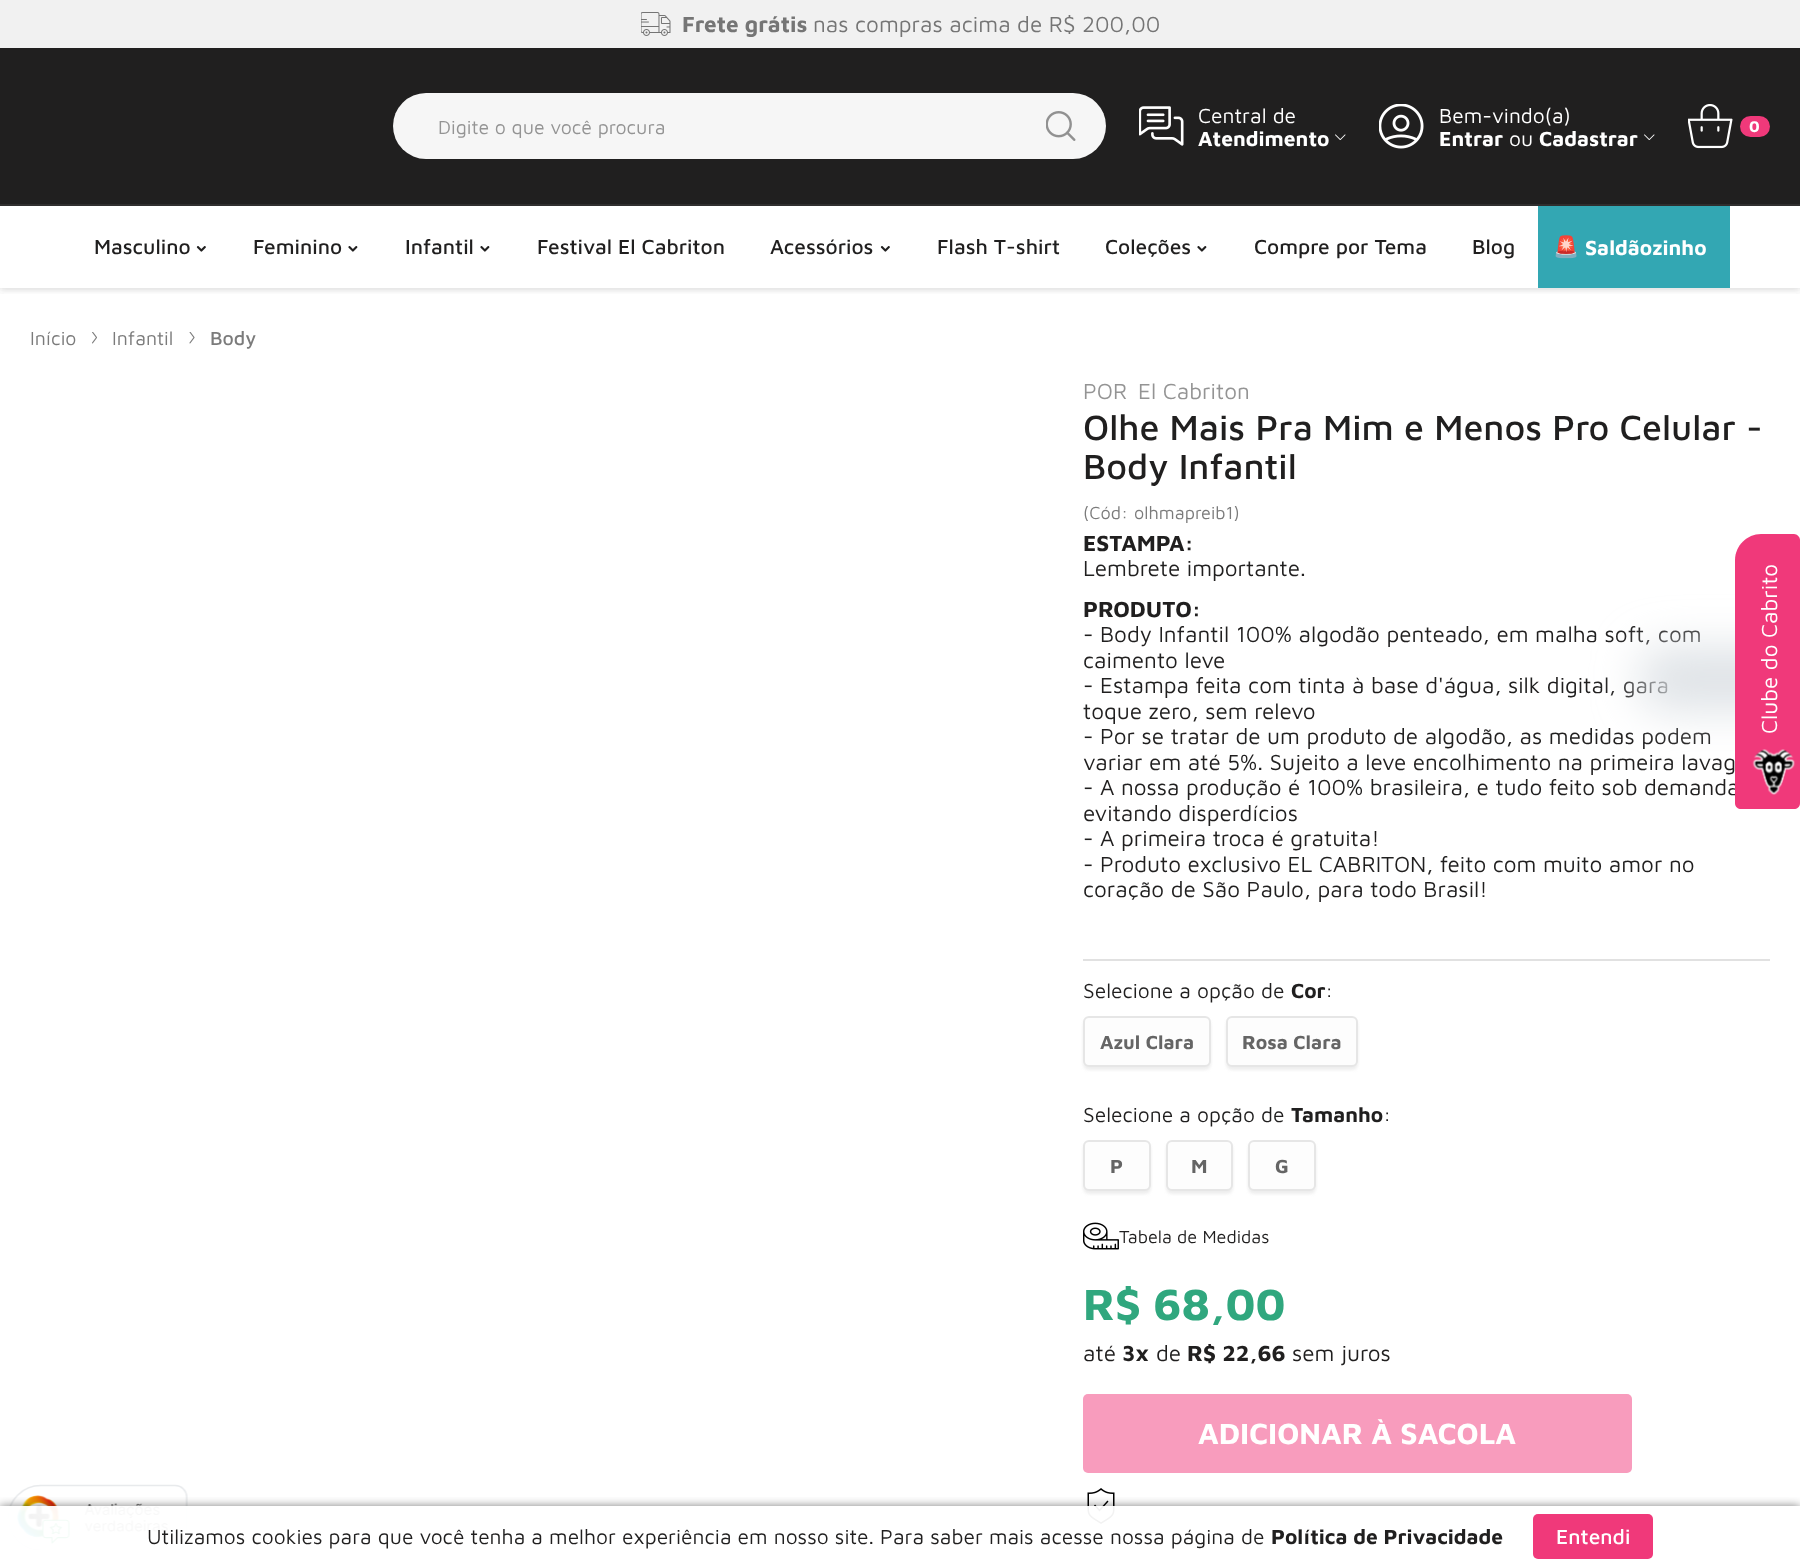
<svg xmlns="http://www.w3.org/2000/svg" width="1800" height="1566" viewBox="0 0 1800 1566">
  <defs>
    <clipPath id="clip1"><rect x="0" y="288" width="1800" height="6"/></clipPath>
    <filter id="blur1" x="-50%" y="-200%" width="200%" height="500%"><feGaussianBlur stdDeviation="3"/></filter>
    <clipPath id="clip2"><rect x="438" y="114" width="501" height="24"/></clipPath>
    <filter id="blur2" x="-50%" y="-200%" width="200%" height="500%"><feGaussianBlur stdDeviation="1.5"/></filter>
    <filter id="blur3" x="-50%" y="-200%" width="200%" height="500%"><feGaussianBlur stdDeviation="22.5"/></filter>
    <clipPath id="clip3"><rect x="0" y="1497" width="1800" height="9"/></clipPath>
    <filter id="blur4" x="-50%" y="-200%" width="200%" height="500%"><feGaussianBlur stdDeviation="5"/></filter>
  </defs>
  <rect width="100%" height="100%" fill="#ffffff"/>
  <rect x="0" y="0" width="1800" height="48" fill="#f1f1f1"/>
  <image x="641" y="12" width="30" height="24" href="img1.png"/>
  <text x="682" y="32" font-family="Maven Pro" font-size="22.5" font-weight="bold" fill="#757575">Frete grátis</text>
  <text x="813" y="32" font-family="Maven Pro" font-size="22.5" fill="#757575">nas compras acima de R$ 200,00</text>
  <g clip-path="url(#clip1)">
    <rect x="0" y="207" width="1800" height="83" fill="#525252" fill-opacity="0.2" filter="url(#blur1)"/>
  </g>
  <rect x="0" y="48" width="1800" height="156" fill="#201f1f"/>
  <rect x="0" y="204" width="1800" height="2" fill="#2f2e2e"/>
  <rect x="393" y="93" width="713" height="66" rx="33" fill="#f6f6f6"/>
  <g clip-path="url(#clip2)">
    <text x="438" y="134" font-family="Maven Pro" font-size="19.5" fill="#949494">Digite o que você procura</text>
  </g>
  <image x="1046" y="111" width="30" height="30" href="img2.png"/>
  <image x="1139" y="106" width="45" height="40" href="img3.png"/>
  <text x="1198" y="123" font-family="Maven Pro" font-size="21" fill="#ffffff">Central de</text>
  <text x="1198" y="146" font-family="Maven Pro" font-size="21" font-weight="bold" fill="#ffffff">Atendimento</text>
  <image x="1335" y="134" width="11" height="6" href="img4.png"/>
  <image x="1379" y="104" width="45" height="45" href="img5.png"/>
  <text x="1439" y="123" font-family="Maven Pro" font-size="21" fill="#ffffff">Bem-vindo(a)</text>
  <text x="1439" y="146" font-family="Maven Pro" font-size="21" font-weight="bold" fill="#ffffff">Entrar</text>
  <text x="1509" y="146" font-family="Maven Pro" font-size="21" fill="#ffffff">ou</text>
  <text x="1539" y="146" font-family="Maven Pro" font-size="21" font-weight="bold" fill="#ffffff">Cadastrar</text>
  <image x="1644" y="134" width="11" height="6" href="img4.png"/>
  <image x="1688" y="104" width="45" height="45" href="img6.png"/>
  <rect x="1740" y="116" width="30" height="21" rx="10.5" fill="#f0397a"/>
  <text x="1749" y="132" font-family="Maven Pro" font-size="16" font-weight="bold" fill="#ffffff">0</text>
  <text x="94" y="254" font-family="Maven Pro" font-size="21" font-weight="500" fill="#201f1f">Masculino</text>
  <image x="196" y="246" width="10" height="6" href="img7.png"/>
  <text x="253" y="254" font-family="Maven Pro" font-size="21" font-weight="500" fill="#201f1f">Feminino</text>
  <image x="348" y="246" width="10" height="6" href="img8.png"/>
  <text x="405" y="254" font-family="Maven Pro" font-size="21" font-weight="500" fill="#201f1f">Infantil</text>
  <image x="480" y="246" width="10" height="6" href="img8.png"/>
  <text x="537" y="254" font-family="Maven Pro" font-size="21" font-weight="500" fill="#201f1f">Festival El Cabriton</text>
  <text x="770" y="254" font-family="Maven Pro" font-size="21" font-weight="500" fill="#201f1f">Acessórios</text>
  <image x="880" y="246" width="10" height="6" href="img7.png"/>
  <text x="937" y="254" font-family="Maven Pro" font-size="21" font-weight="500" fill="#201f1f">Flash T-shirt</text>
  <text x="1105" y="254" font-family="Maven Pro" font-size="21" font-weight="500" fill="#201f1f">Coleções</text>
  <image x="1197" y="246" width="10" height="6" href="img8.png"/>
  <text x="1254" y="254" font-family="Maven Pro" font-size="21" font-weight="500" fill="#201f1f">Compre por Tema</text>
  <text x="1472" y="254" font-family="Maven Pro" font-size="21" font-weight="500" fill="#201f1f">Blog</text>
  <rect x="1538" y="206" width="192" height="82" fill="#33a7b3"/>
  <text x="1553" y="254" font-family="Noto Color Emoji" font-size="21" font-weight="bold" fill="#ffffff">🚨</text>
  <text x="1585" y="255" font-family="Maven Pro" font-size="21" font-weight="bold" fill="#ffffff">Saldãozinho</text>
  <text x="30" y="345" font-family="Maven Pro" font-size="19.5" fill="#7b7b7b">Início</text>
  <image x="92" y="332" width="5" height="12" href="img9.png"/>
  <text x="112" y="345" font-family="Maven Pro" font-size="19.5" fill="#7b7b7b">Infantil</text>
  <image x="189" y="332" width="6" height="12" href="img10.png"/>
  <text x="210" y="345" font-family="Maven Pro" font-size="19.5" font-weight="500" fill="#7b7b7b">Body</text>
  <rect x="1083" y="959" width="687" height="2" fill="#e1e1e1"/>
  <text x="1083" y="399" font-family="Maven Pro" font-size="22.5" fill="#949494">POR</text>
  <text x="1138" y="399" font-family="Maven Pro" font-size="22.5" fill="#949494">El Cabriton</text>
  <text x="1083" y="440" font-family="Maven Pro" font-size="36" font-weight="500" fill="#201f1f">Olhe Mais Pra Mim e Menos Pro Celular -</text>
  <text x="1083" y="479" font-family="Maven Pro" font-size="36" font-weight="500" fill="#201f1f">Body Infantil</text>
  <text x="1083" y="519" font-family="Maven Pro" font-size="18" fill="#7b7b7b">(Cód:</text>
  <text x="1134" y="519" font-family="Maven Pro" font-size="18" fill="#7b7b7b">olhmapreib1)</text>
  <text x="1083" y="551" font-family="Maven Pro" font-size="22.5" font-weight="bold" fill="#201f1f">ESTAMPA:</text>
  <text x="1083" y="576" font-family="Maven Pro" font-size="22.5" fill="#201f1f">Lembrete importante.</text>
  <text x="1083" y="617" font-family="Maven Pro" font-size="22.5" font-weight="bold" fill="#201f1f">PRODUTO:</text>
  <text x="1083" y="642" font-family="Maven Pro" font-size="22.5" fill="#201f1f">- Body Infantil 100% algodão penteado, em malha soft, com</text>
  <text x="1083" y="668" font-family="Maven Pro" font-size="22.5" fill="#201f1f">caimento leve</text>
  <text x="1083" y="693" font-family="Maven Pro" font-size="22.5" fill="#201f1f">- Estampa feita com tinta à base d'água, silk digital, gara</text>
  <text x="1083" y="719" font-family="Maven Pro" font-size="22.5" fill="#201f1f">toque zero, sem relevo</text>
  <text x="1083" y="744" font-family="Maven Pro" font-size="22.5" fill="#201f1f">- Por se tratar de um produto de algodão, as medidas podem</text>
  <text x="1083" y="770" font-family="Maven Pro" font-size="22.5" fill="#201f1f">variar em até 5%. Sujeito a leve encolhimento na primeira lavag</text>
  <text x="1083" y="795" font-family="Maven Pro" font-size="22.5" fill="#201f1f">- A nossa produção é 100% brasileira, e tudo feito sob demanda</text>
  <text x="1083" y="821" font-family="Maven Pro" font-size="22.5" fill="#201f1f">evitando disperdícios</text>
  <text x="1083" y="846" font-family="Maven Pro" font-size="22.5" fill="#201f1f">- A primeira troca é gratuita!</text>
  <text x="1083" y="872" font-family="Maven Pro" font-size="22.5" fill="#201f1f">- Produto exclusivo EL CABRITON, feito com muito amor no</text>
  <text x="1083" y="897" font-family="Maven Pro" font-size="22.5" fill="#201f1f">coração de São Paulo, para todo Brasil!</text>
  <text x="1083" y="998" font-family="Maven Pro" font-size="21" fill="#201f1f">Selecione a opção de</text>
  <text x="1291" y="998" font-family="Maven Pro" font-size="21" font-weight="bold" fill="#201f1f">Cor</text>
  <text x="1325" y="998" font-family="Maven Pro" font-size="21" fill="#201f1f">:</text>
  <rect x="1083" y="1019" width="128" height="51" rx="6" fill="#cdcdcd" fill-opacity="0.35" filter="url(#blur2)"/>
  <rect x="1084" y="1017" width="126" height="49" rx="5" fill="#fdfdfd" stroke="#e6e6e6" stroke-width="2"/>
  <text x="1100" y="1049" font-family="Maven Pro" font-size="19.5" font-weight="bold" fill="#656565">Azul Clara</text>
  <rect x="1226" y="1019" width="132" height="51" rx="6" fill="#cdcdcd" fill-opacity="0.35" filter="url(#blur2)"/>
  <rect x="1227" y="1017" width="130" height="49" rx="5" fill="#fdfdfd" stroke="#e6e6e6" stroke-width="2"/>
  <text x="1242" y="1049" font-family="Maven Pro" font-size="19.5" font-weight="bold" fill="#656565">Rosa Clara</text>
  <text x="1083" y="1122" font-family="Maven Pro" font-size="21" fill="#201f1f">Selecione a opção de</text>
  <text x="1291" y="1122" font-family="Maven Pro" font-size="21" font-weight="bold" fill="#201f1f">Tamanho</text>
  <text x="1383" y="1122" font-family="Maven Pro" font-size="21" fill="#201f1f">:</text>
  <rect x="1083" y="1143" width="68" height="51" rx="6" fill="#cdcdcd" fill-opacity="0.35" filter="url(#blur2)"/>
  <rect x="1084" y="1141" width="66" height="49" rx="5" fill="#fdfdfd" stroke="#e6e6e6" stroke-width="2"/>
  <text x="1110" y="1173" font-family="Maven Pro" font-size="19.5" font-weight="bold" fill="#656565">P</text>
  <rect x="1166" y="1143" width="67" height="51" rx="6" fill="#cdcdcd" fill-opacity="0.35" filter="url(#blur2)"/>
  <rect x="1167" y="1141" width="65" height="49" rx="5" fill="#fdfdfd" stroke="#e6e6e6" stroke-width="2"/>
  <text x="1191" y="1173" font-family="Maven Pro" font-size="19.5" font-weight="bold" fill="#656565">M</text>
  <rect x="1248" y="1143" width="68" height="51" rx="6" fill="#cdcdcd" fill-opacity="0.35" filter="url(#blur2)"/>
  <rect x="1249" y="1141" width="66" height="49" rx="5" fill="#fdfdfd" stroke="#e6e6e6" stroke-width="2"/>
  <text x="1275" y="1173" font-family="Maven Pro" font-size="19.5" font-weight="bold" fill="#656565">G</text>
  <image x="1083" y="1222" width="36" height="28" href="img11.png"/>
  <text x="1119" y="1243" font-family="Maven Pro" font-size="18" fill="#201f1f">Tabela de Medidas</text>
  <text x="1083" y="1320" font-family="Maven Pro" font-size="45" font-weight="bold" fill="#30a77e">R$ 68,00</text>
  <text x="1083" y="1361" font-family="Maven Pro" font-size="22.5" fill="#201f1f">até</text>
  <text x="1122" y="1361" font-family="Maven Pro" font-size="22.5" font-weight="bold" fill="#201f1f">3x</text>
  <text x="1156" y="1361" font-family="Maven Pro" font-size="22.5" fill="#201f1f">de</text>
  <text x="1187" y="1361" font-family="Maven Pro" font-size="22.5" font-weight="bold" fill="#201f1f">R$ 22,66</text>
  <text x="1292" y="1361" font-family="Maven Pro" font-size="22.5" fill="#201f1f">sem juros</text>
  <rect x="1083" y="1394" width="549" height="79" rx="5" fill="#f89cbd"/>
  <text x="1198" y="1444" font-family="Maven Pro" font-size="30" font-weight="bold" fill="#ffffff">ADICIONAR À SACOLA</text>
  <image x="1087" y="1488" width="28" height="36" href="img12.png"/>
  <rect x="1640" y="648" width="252" height="62" rx="24" fill="#dee2e6" filter="url(#blur3)"/>
  <path d="M1735 803V560C1735 546 1747 534 1761 534H1794C1797 534 1800 537 1800 540V803C1800 807 1797 809 1794 809H1741C1738 809 1735 807 1735 803Z" fill="#f0397a"/>
  <text x="1777" y="734" transform="rotate(-90 1777 734)" font-family="Maven Pro" font-size="22.5" fill="#ffffff">Clube do Cabrito</text>
  <image x="1752" y="749" width="43" height="46" href="img13.png"/>
  <image x="7" y="1484" width="181" height="67" href="img14.png"/>
  <g clip-path="url(#clip3)">
    <rect x="0" y="1506" width="1800" height="60" fill="#000000" fill-opacity="0.5" filter="url(#blur4)"/>
  </g>
  <rect x="7" y="1506" width="1108" height="45" fill="#ffffff" fill-opacity="0.95"/>
  <text x="147" y="1544" font-family="Maven Pro" font-size="21" fill="#201f1f">Utilizamos cookies para que você tenha a melhor experiência em nosso site. Para saber mais acesse nossa página de</text>
  <text x="1271" y="1544" font-family="Maven Pro" font-size="21" font-weight="bold" fill="#201f1f">Política de Privacidade</text>
  <rect x="1533" y="1514" width="120" height="45" rx="5" fill="#f0397a"/>
  <text x="1556" y="1544" font-family="Maven Pro" font-size="21" font-weight="500" fill="#ffffff">Entendi</text>
</svg>
